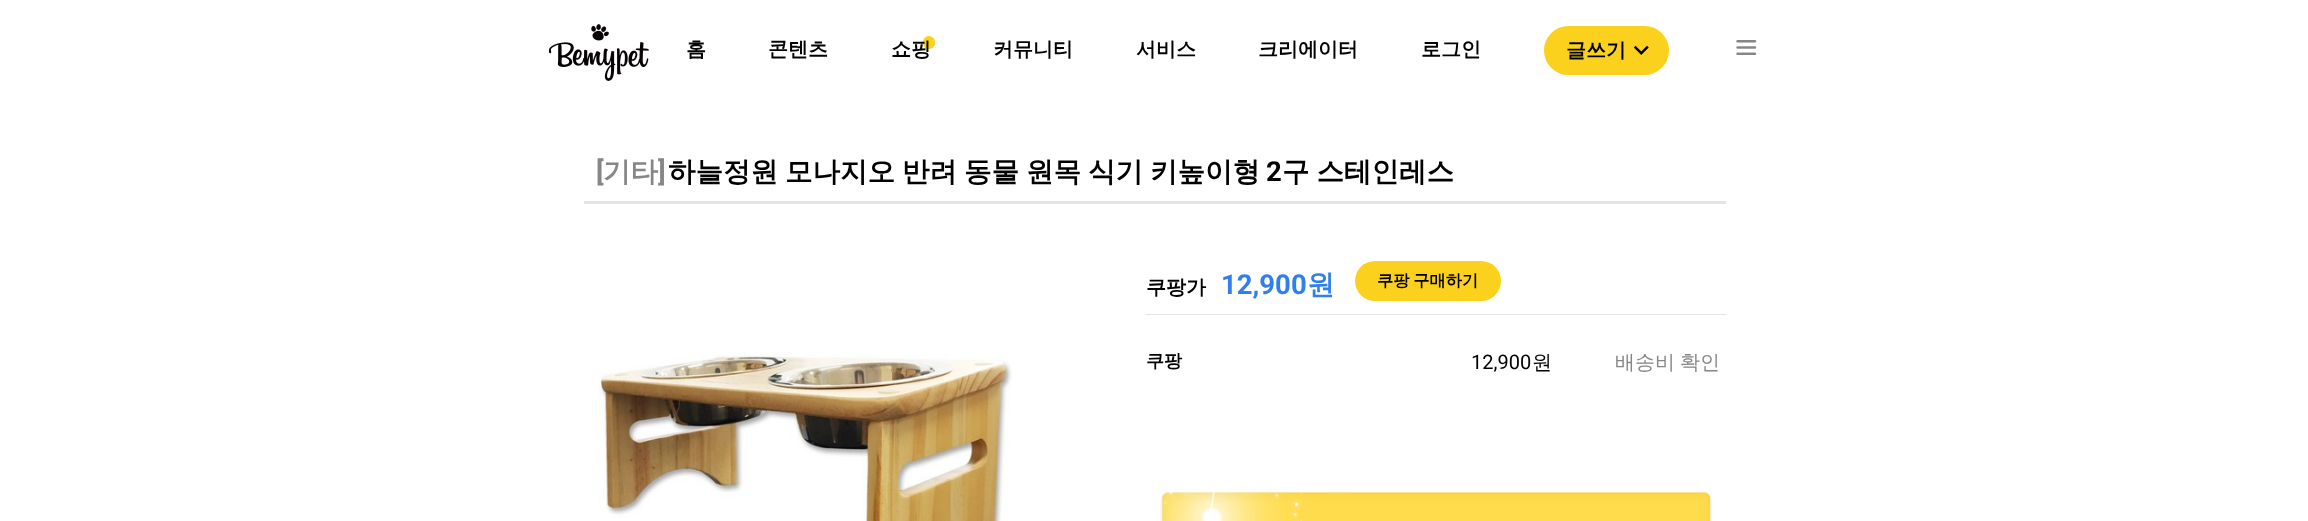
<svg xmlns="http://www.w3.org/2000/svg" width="2308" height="521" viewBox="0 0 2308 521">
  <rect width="100%" height="100%" fill="#ffffff"/>
  <image x="549" y="24" width="100" height="57" href="img1.png"/>
  <text x="686" y="56" font-family="WenQuanYi Zen Hei" font-size="20" font-weight="bold" fill="#000000">홈</text>
  <text x="768" y="56" font-family="WenQuanYi Zen Hei" font-size="20" font-weight="bold" fill="#000000">콘텐츠</text>
  <rect x="923" y="36" width="12" height="13" rx="6" fill="#fcd11e"/>
  <text x="891" y="56" font-family="WenQuanYi Zen Hei" font-size="20" font-weight="bold" fill="#000000">쇼핑</text>
  <text x="993" y="56" font-family="WenQuanYi Zen Hei" font-size="20" font-weight="bold" fill="#000000">커뮤니티</text>
  <text x="1136" y="56" font-family="WenQuanYi Zen Hei" font-size="20" font-weight="bold" fill="#000000">서비스</text>
  <text x="1258" y="56" font-family="WenQuanYi Zen Hei" font-size="20" font-weight="bold" fill="#000000">크리에이터</text>
  <text x="1421" y="56" font-family="WenQuanYi Zen Hei" font-size="20" font-weight="bold" fill="#000000">로그인</text>
  <rect x="1544" y="26" width="125" height="49" rx="24.5" fill="#fcd11e"/>
  <text x="1566" y="57" font-family="WenQuanYi Zen Hei" font-size="20" font-weight="bold" fill="#000000">글쓰기</text>
  <image x="1633" y="45" width="16" height="10" href="img2.png"/>
  <image x="1736" y="40" width="21" height="15" href="img3.png"/>
  <rect x="584" y="201" width="1142" height="3" fill="#e4e4e6"/>
  <text x="596" y="181" font-family="Roboto" font-size="27.5" font-weight="bold" fill="#868688">[</text>
  <text x="603" y="181" font-family="WenQuanYi Zen Hei" font-size="27.5" font-weight="bold" fill="#868688">기타</text>
  <text x="658" y="181" font-family="Roboto" font-size="27.5" font-weight="bold" fill="#868688">]</text>
  <text x="668" y="181" word-spacing="-1.25" font-family="WenQuanYi Zen Hei" font-size="27.5" font-weight="bold" fill="#000000">하늘정원 모나지오 반려 동물 원목 식기 키높이형</text>
  <text x="1266" y="181" font-family="Roboto" font-size="27.5" font-weight="bold" fill="#000000">2</text>
  <text x="1282" y="181" word-spacing="-1.25" font-family="WenQuanYi Zen Hei" font-size="27.5" font-weight="bold" fill="#000000">구 스테인레스</text>
  <text x="1146" y="294" font-family="WenQuanYi Zen Hei" font-size="20" font-weight="bold" fill="#000000">쿠팡가</text>
  <text x="1221" y="294" font-family="Roboto" font-size="27.5" font-weight="bold" fill="#2f80ed">12,900</text>
  <text x="1307" y="294" font-family="WenQuanYi Zen Hei" font-size="27.5" font-weight="bold" fill="#2f80ed">원</text>
  <rect x="1355" y="261" width="146" height="40" rx="20" fill="#fcd11e"/>
  <text x="1377" y="286" word-spacing="-1" font-family="WenQuanYi Zen Hei" font-size="16.25" font-weight="bold" fill="#000000">쿠팡 구매하기</text>
  <rect x="1146" y="314" width="580" height="1" fill="#e4e4e6"/>
  <text x="1146" y="367" font-family="WenQuanYi Zen Hei" font-size="18" font-weight="bold" fill="#000000">쿠팡</text>
  <text x="1471" y="369" font-family="Roboto" font-size="20" fill="#000000">12,900</text>
  <text x="1532" y="369" font-family="WenQuanYi Zen Hei" font-size="20" font-weight="500" fill="#000000">원</text>
  <text x="1615" y="369" word-spacing="-1" font-family="WenQuanYi Zen Hei" font-size="20" font-weight="500" fill="#868688">배송비 확인</text>
  <image x="1160" y="492" width="552" height="29" href="img4.png"/>
  <image x="598" y="351" width="414" height="170" href="img5.png"/>
</svg>
